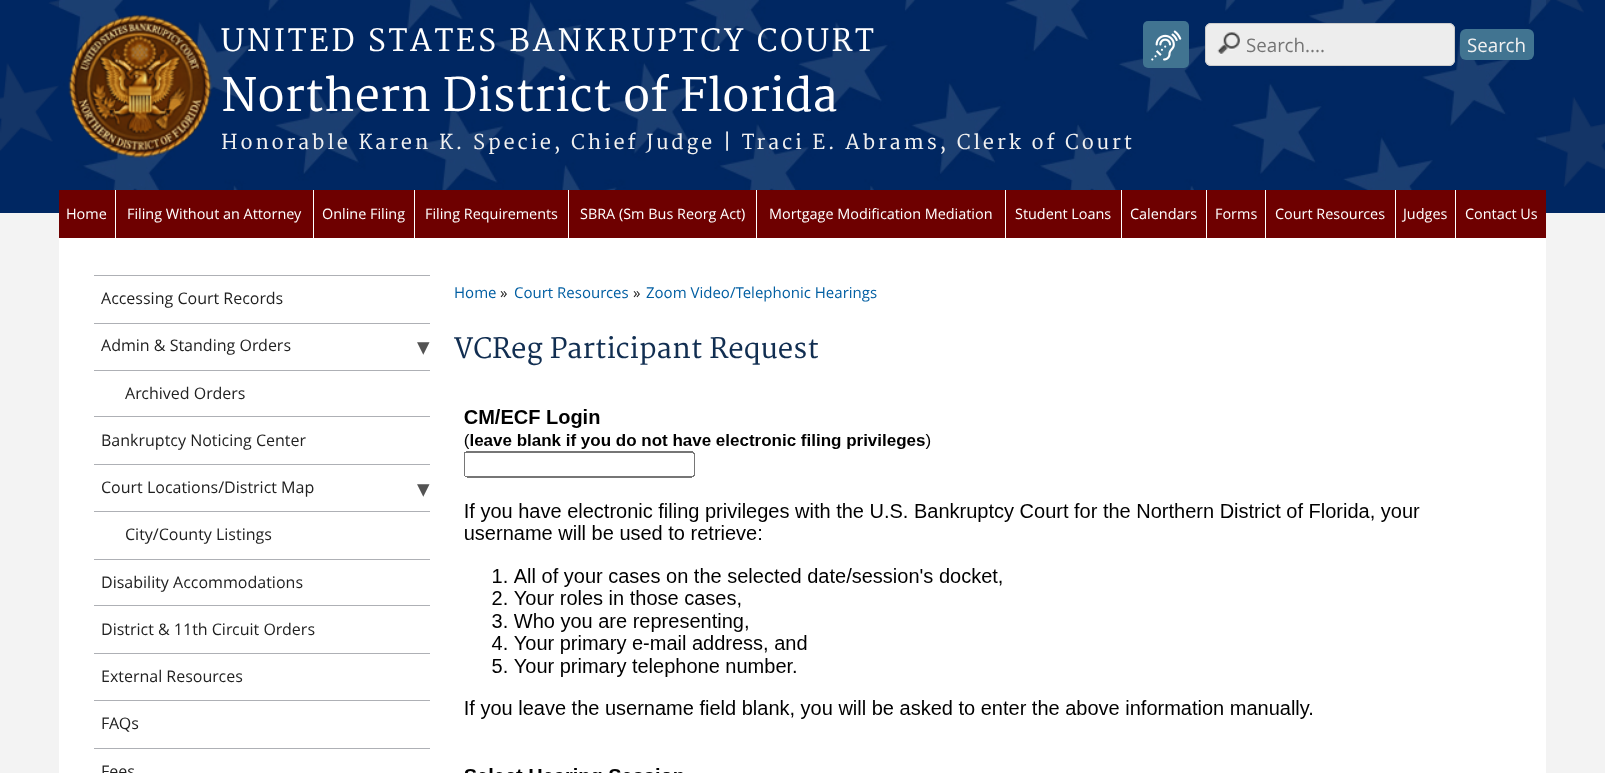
<svg xmlns="http://www.w3.org/2000/svg" width="1605" height="773" viewBox="0 0 1605 773">
  <rect width="100%" height="100%" fill="#f3f3f3"/>
  <rect x="0" y="0" width="1605" height="213" fill="#002762"/>
  <image x="0" y="0" width="1605" height="187" href="img1.png"/>
  <rect x="59" y="238" width="1487" height="535" fill="#ffffff"/>
  <image x="59" y="0" width="1487" height="190" href="img2.png"/>
  <image x="68" y="14" width="144" height="144" href="img3.png"/>
  <text x="221" y="51" font-family="Merriweather" font-size="30" letter-spacing="2.75" fill="#ffffff">UNITED STATES BANKRUPTCY COURT</text>
  <text x="221" y="111" font-family="Merriweather" font-size="45" fill="#ffffff">Northern District of Florida</text>
  <text x="221" y="149" font-family="Merriweather" font-size="20" letter-spacing="2.75" fill="#f1f1f1">Honorable Karen K. Specie, Chief Judge | Traci E. Abrams, Clerk of Court</text>
  <rect x="1143" y="21" width="46" height="47" rx="5" fill="#417491"/>
  <image x="1151" y="30" width="31" height="31" href="img4.png"/>
  <rect x="1205" y="23" width="250" height="43" rx="6" fill="#ededed"/>
  <image x="1217" y="32" width="23" height="23" href="img5.png"/>
  <rect x="1205.5" y="23.5" width="249" height="42" rx="5.5" fill="none" stroke="#cccccc"/>
  <text x="1246" y="52" font-family="Open Sans" font-size="18.75" fill="#757575">Search....</text>
  <rect x="1460" y="29" width="74" height="31" rx="6" fill="#417491"/>
  <text x="1467" y="52" font-family="Open Sans" font-size="18.75" fill="#f1f1f1">Search</text>
  <rect x="59" y="190" width="1487" height="48" fill="#6e0000"/>
  <rect x="115" y="190" width="1" height="48" fill="#ffffff"/>
  <text x="66" y="219" font-family="Open Sans" font-size="14.4" fill="#ffffff">Home</text>
  <rect x="313" y="190" width="1" height="48" fill="#ffffff"/>
  <text x="127" y="219" font-family="Open Sans" font-size="14.4" fill="#ffffff">Filing Without an Attorney</text>
  <rect x="414" y="190" width="1" height="48" fill="#ffffff"/>
  <text x="322" y="219" font-family="Open Sans" font-size="14.4" fill="#ffffff">Online Filing</text>
  <rect x="568" y="190" width="1" height="48" fill="#ffffff"/>
  <text x="425" y="219" font-family="Open Sans" font-size="14.4" fill="#ffffff">Filing Requirements</text>
  <rect x="756" y="190" width="1" height="48" fill="#ffffff"/>
  <text x="580" y="219" font-family="Open Sans" font-size="14.4" fill="#ffffff">SBRA (Sm Bus Reorg Act)</text>
  <rect x="1005" y="190" width="1" height="48" fill="#ffffff"/>
  <text x="769" y="219" font-family="Open Sans" font-size="14.4" fill="#ffffff">Mortgage Modification Mediation</text>
  <rect x="1121" y="190" width="1" height="48" fill="#ffffff"/>
  <text x="1015" y="219" font-family="Open Sans" font-size="14.4" fill="#ffffff">Student Loans</text>
  <rect x="1206" y="190" width="1" height="48" fill="#ffffff"/>
  <text x="1130" y="219" font-family="Open Sans" font-size="14.4" fill="#ffffff">Calendars</text>
  <rect x="1265" y="190" width="1" height="48" fill="#ffffff"/>
  <text x="1215" y="219" font-family="Open Sans" font-size="14.4" fill="#ffffff">Forms</text>
  <rect x="1395" y="190" width="1" height="48" fill="#ffffff"/>
  <text x="1275" y="219" font-family="Open Sans" font-size="14.4" fill="#ffffff">Court Resources</text>
  <rect x="1455" y="190" width="1" height="48" fill="#ffffff"/>
  <text x="1403" y="219" font-family="Open Sans" font-size="14.4" fill="#ffffff">Judges</text>
  <text x="1465" y="219" font-family="Open Sans" font-size="14.4" fill="#ffffff">Contact Us</text>
  <rect x="94" y="275" width="336" height="1" fill="#aeb0b5"/>
  <text x="101" y="304" font-family="Open Sans" font-size="16" fill="#212121">Accessing Court Records</text>
  <rect x="94" y="323" width="336" height="1" fill="#aeb0b5"/>
  <text x="101" y="351" font-family="Open Sans" font-size="16" fill="#212121">Admin &amp; Standing Orders</text>
  <text x="417" y="355" font-family="DejaVu Sans" font-size="25" fill="#535353">▾</text>
  <rect x="94" y="370" width="336" height="1" fill="#aeb0b5"/>
  <text x="125" y="399" font-family="Open Sans" font-size="16" fill="#212121">Archived Orders</text>
  <rect x="94" y="416" width="336" height="1" fill="#aeb0b5"/>
  <text x="101" y="446" font-family="Open Sans" font-size="16" fill="#212121">Bankruptcy Noticing Center</text>
  <rect x="94" y="464" width="336" height="1" fill="#aeb0b5"/>
  <text x="101" y="493" font-family="Open Sans" font-size="16" fill="#212121">Court Locations/District Map</text>
  <text x="417" y="497" font-family="DejaVu Sans" font-size="25" fill="#535353">▾</text>
  <rect x="94" y="511" width="336" height="1" fill="#aeb0b5"/>
  <text x="125" y="540" font-family="Open Sans" font-size="16" fill="#212121">City/County Listings</text>
  <rect x="94" y="559" width="336" height="1" fill="#aeb0b5"/>
  <text x="101" y="588" font-family="Open Sans" font-size="16" fill="#212121">Disability Accommodations</text>
  <rect x="94" y="605" width="336" height="1" fill="#aeb0b5"/>
  <text x="101" y="635" font-family="Open Sans" font-size="16" fill="#212121">District &amp; 11th Circuit Orders</text>
  <rect x="94" y="653" width="336" height="1" fill="#aeb0b5"/>
  <text x="101" y="682" font-family="Open Sans" font-size="16" fill="#212121">External Resources</text>
  <rect x="94" y="700" width="336" height="1" fill="#aeb0b5"/>
  <text x="101" y="729" font-family="Open Sans" font-size="16" fill="#212121">FAQs</text>
  <rect x="94" y="748" width="336" height="1" fill="#aeb0b5"/>
  <text x="101" y="777" font-family="Open Sans" font-size="16" fill="#212121">Fees</text>
  <text x="454" y="298" font-family="Open Sans" font-size="15" fill="#005ea2">Home</text>
  <text x="500" y="298" font-family="Open Sans" font-size="15" fill="#212121">»</text>
  <text x="514" y="298" font-family="Open Sans" font-size="15" fill="#005ea2">Court Resources</text>
  <text x="633" y="298" font-family="Open Sans" font-size="15" fill="#212121">»</text>
  <text x="646" y="298" font-family="Open Sans" font-size="15" fill="#005ea2">Zoom Video/Telephonic Hearings</text>
  <text x="454" y="358" font-family="Merriweather" font-size="27.5" fill="#112e51">VCReg Participant Request</text>
  <image x="464" y="409" width="956" height="364" href="img6.png"/>
</svg>
